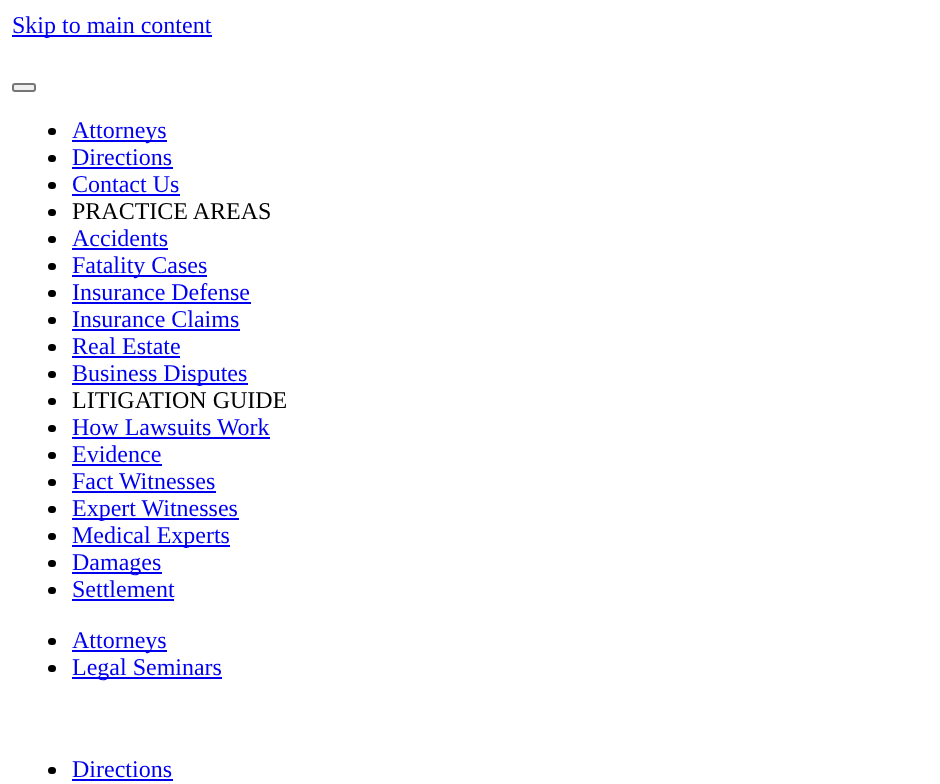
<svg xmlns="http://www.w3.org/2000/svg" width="940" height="784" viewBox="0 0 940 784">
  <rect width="100%" height="100%" fill="#ffffff"/>
  <rect x="12" y="35" width="200" height="2" fill="#0000ee"/>
  <text x="12" y="33" font-family="Liberation Serif" font-size="24" fill="#0000ee">Skip to main content</text>
  <rect x="13" y="84" width="22" height="7" rx="2" fill="#efefef" stroke="#767676" stroke-width="2"/>
  <rect x="48" y="128" width="8" height="7" rx="3.5" fill="#000000"/>
  <rect x="72" y="140" width="95" height="2" fill="#0000ee"/>
  <text x="72" y="138" font-family="Liberation Serif" font-size="24" fill="#0000ee">Attorneys</text>
  <rect x="48" y="155" width="8" height="7" rx="3.5" fill="#000000"/>
  <text x="72" y="165" font-family="Liberation Serif" font-size="24" fill="#0000ee">Directions</text>
  <rect x="72" y="167" width="101" height="2" fill="#0000ee"/>
  <rect x="48" y="182" width="8" height="7" rx="3.5" fill="#000000"/>
  <text x="72" y="192" font-family="Liberation Serif" font-size="24" fill="#0000ee">Contact Us</text>
  <rect x="72" y="194" width="108" height="2" fill="#0000ee"/>
  <rect x="48" y="209" width="8" height="7" rx="3.5" fill="#000000"/>
  <text x="72" y="219" font-family="Liberation Serif" font-size="24" fill="#000000">PRACTICE AREAS</text>
  <rect x="48" y="236" width="8" height="7" rx="3.5" fill="#000000"/>
  <text x="72" y="246" font-family="Liberation Serif" font-size="24" fill="#0000ee">Accidents</text>
  <rect x="72" y="248" width="96" height="2" fill="#0000ee"/>
  <rect x="48" y="263" width="8" height="7" rx="3.5" fill="#000000"/>
  <rect x="72" y="275" width="135" height="2" fill="#0000ee"/>
  <text x="72" y="273" font-family="Liberation Serif" font-size="24" fill="#0000ee">Fatality Cases</text>
  <rect x="48" y="290" width="8" height="7" rx="3.5" fill="#000000"/>
  <text x="72" y="300" font-family="Liberation Serif" font-size="24" fill="#0000ee">Insurance Defense</text>
  <rect x="72" y="302" width="179" height="2" fill="#0000ee"/>
  <rect x="48" y="317" width="8" height="7" rx="3.5" fill="#000000"/>
  <text x="72" y="327" font-family="Liberation Serif" font-size="24" fill="#0000ee">Insurance Claims</text>
  <rect x="72" y="329" width="168" height="2" fill="#0000ee"/>
  <rect x="48" y="344" width="8" height="7" rx="3.5" fill="#000000"/>
  <text x="72" y="354" font-family="Liberation Serif" font-size="24" fill="#0000ee">Real Estate</text>
  <rect x="72" y="356" width="108" height="2" fill="#0000ee"/>
  <rect x="48" y="371" width="8" height="7" rx="3.5" fill="#000000"/>
  <rect x="72" y="383" width="176" height="2" fill="#0000ee"/>
  <text x="72" y="381" font-family="Liberation Serif" font-size="24" fill="#0000ee">Business Disputes</text>
  <rect x="48" y="398" width="8" height="7" rx="3.5" fill="#000000"/>
  <text x="72" y="408" font-family="Liberation Serif" font-size="24" fill="#000000">LITIGATION GUIDE</text>
  <rect x="48" y="425" width="8" height="7" rx="3.5" fill="#000000"/>
  <text x="72" y="435" font-family="Liberation Serif" font-size="24" fill="#0000ee">How Lawsuits Work</text>
  <rect x="72" y="437" width="198" height="2" fill="#0000ee"/>
  <rect x="48" y="452" width="8" height="7" rx="3.5" fill="#000000"/>
  <text x="72" y="462" font-family="Liberation Serif" font-size="24" fill="#0000ee">Evidence</text>
  <rect x="72" y="464" width="90" height="2" fill="#0000ee"/>
  <rect x="48" y="479" width="8" height="7" rx="3.5" fill="#000000"/>
  <text x="72" y="489" font-family="Liberation Serif" font-size="24" fill="#0000ee">Fact Witnesses</text>
  <rect x="72" y="491" width="144" height="2" fill="#0000ee"/>
  <rect x="48" y="506" width="8" height="7" rx="3.5" fill="#000000"/>
  <rect x="72" y="518" width="167" height="2" fill="#0000ee"/>
  <text x="72" y="516" font-family="Liberation Serif" font-size="24" fill="#0000ee">Expert Witnesses</text>
  <rect x="48" y="533" width="8" height="7" rx="3.5" fill="#000000"/>
  <rect x="72" y="545" width="158" height="2" fill="#0000ee"/>
  <text x="72" y="543" font-family="Liberation Serif" font-size="24" fill="#0000ee">Medical Experts</text>
  <rect x="48" y="560" width="8" height="7" rx="3.5" fill="#000000"/>
  <rect x="72" y="572" width="90" height="2" fill="#0000ee"/>
  <text x="72" y="570" font-family="Liberation Serif" font-size="24" fill="#0000ee">Damages</text>
  <rect x="48" y="587" width="8" height="7" rx="3.5" fill="#000000"/>
  <text x="72" y="597" font-family="Liberation Serif" font-size="24" fill="#0000ee">Settlement</text>
  <rect x="72" y="599" width="102" height="2" fill="#0000ee"/>
  <rect x="48" y="638" width="8" height="7" rx="3.5" fill="#000000"/>
  <rect x="72" y="650" width="95" height="2" fill="#0000ee"/>
  <text x="72" y="648" font-family="Liberation Serif" font-size="24" fill="#0000ee">Attorneys</text>
  <rect x="48" y="665" width="8" height="7" rx="3.5" fill="#000000"/>
  <rect x="72" y="677" width="150" height="2" fill="#0000ee"/>
  <text x="72" y="675" font-family="Liberation Serif" font-size="24" fill="#0000ee">Legal Seminars</text>
  <rect x="48" y="767" width="8" height="7" rx="3.5" fill="#000000"/>
  <text x="72" y="777" font-family="Liberation Serif" font-size="24" fill="#0000ee">Directions</text>
  <rect x="72" y="779" width="101" height="2" fill="#0000ee"/>
</svg>
